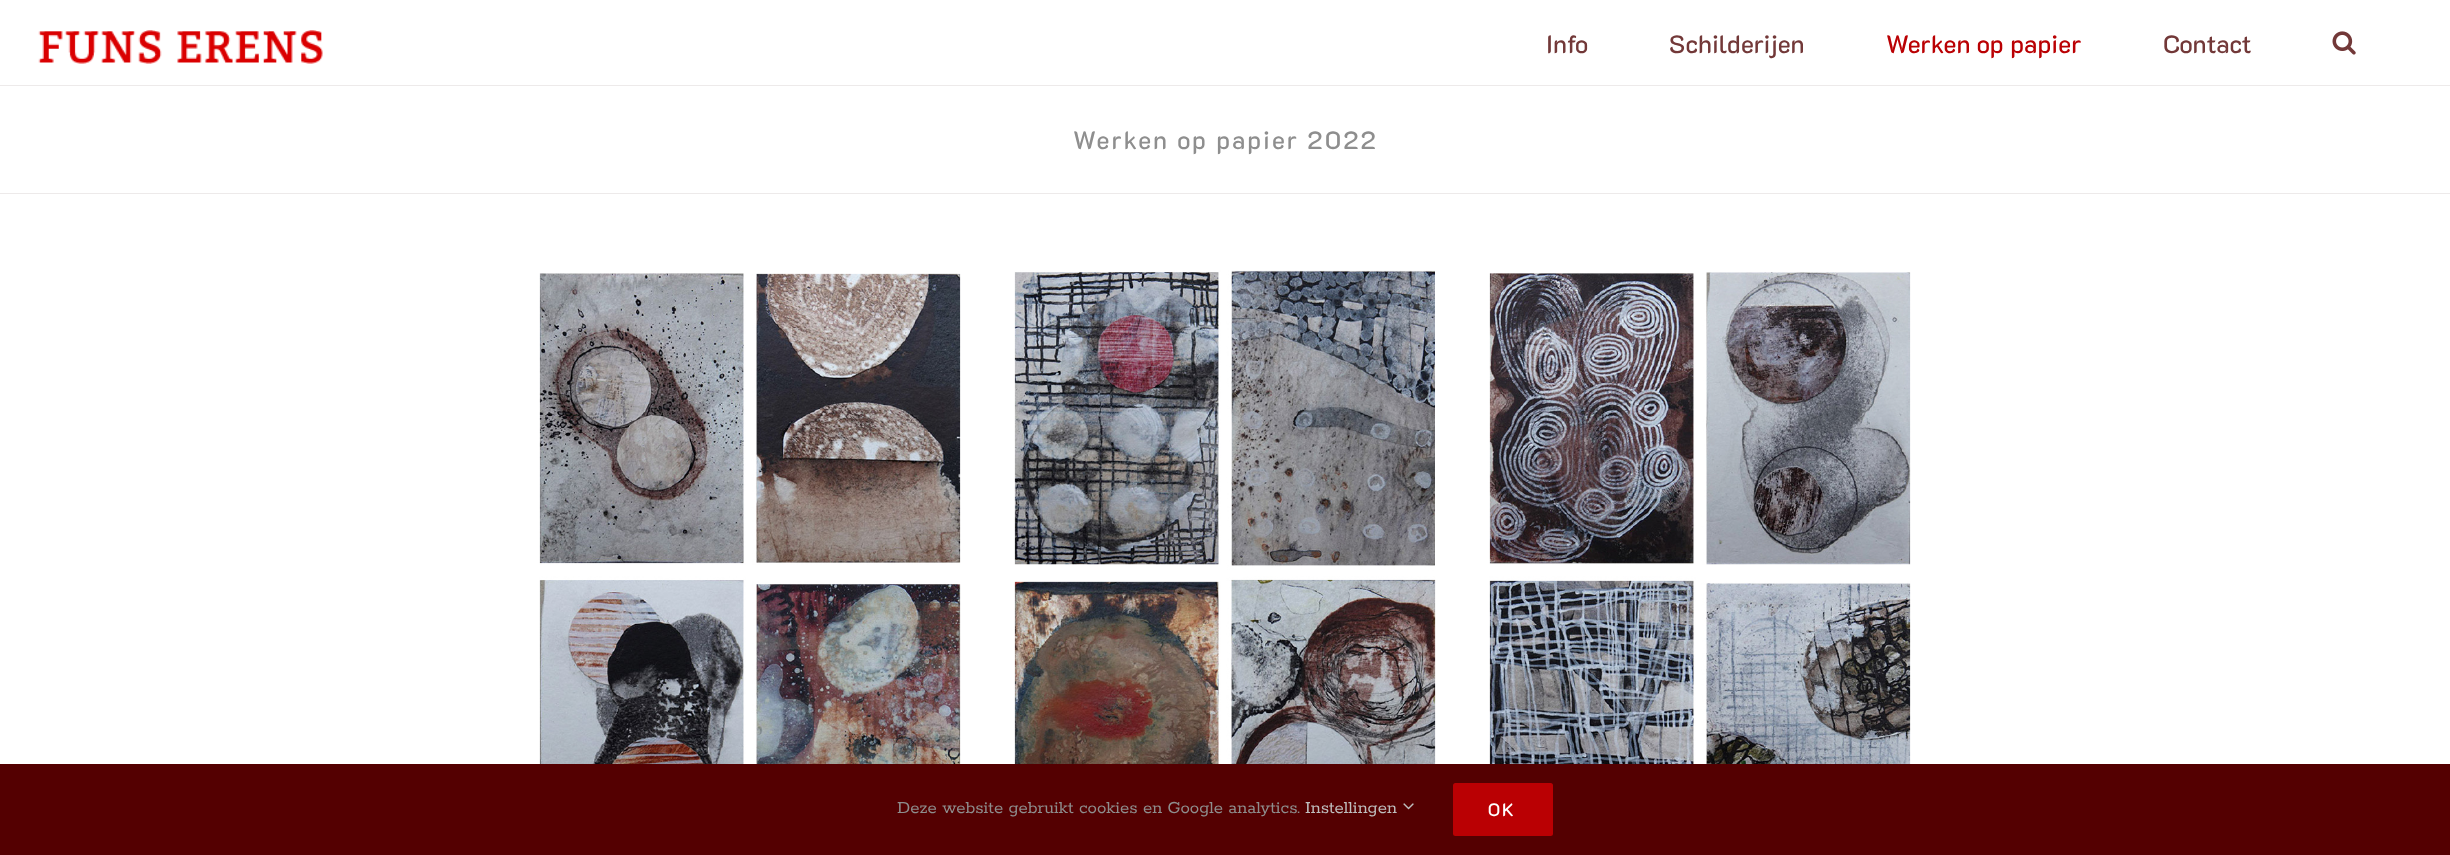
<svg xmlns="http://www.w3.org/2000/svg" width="2450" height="855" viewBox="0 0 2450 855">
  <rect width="100%" height="100%" fill="#ffffff"/>
  <image x="38" y="30" width="285" height="34" href="img1.png"/>
  <text x="1546" y="53" font-family="'K2D'" font-size="25" font-weight="500" fill="#723838">Info</text>
  <text x="1669" y="53" font-family="'K2D'" font-size="25" font-weight="500" fill="#723838">Schilderijen</text>
  <text x="1886" y="53" font-family="'K2D'" font-size="25" font-weight="500" fill="#ba0003">Werken op papier</text>
  <text x="2163" y="53" font-family="'K2D'" font-size="25" font-weight="500" fill="#723838">Contact</text>
  <image x="2332" y="31" width="24" height="24" href="img2.png"/>
  <rect x="0" y="85" width="2450" height="1" fill="#edeaea"/>
  <rect x="0" y="193" width="2450" height="1" fill="#edeaea"/>
  <text x="1073" y="149" font-family="'K2D'" font-size="25" font-weight="500" letter-spacing="1.9" fill="#8e8e8e">Werken op papier 2022</text>
  <image x="539" y="273" width="422" height="491" href="img3.png"/>
  <image x="1014" y="270" width="422" height="494" href="img4.png"/>
  <image x="1489" y="272" width="422" height="492" href="img5.png"/>
  <rect x="0" y="764" width="2450" height="91" fill="#540001"/>
  <text x="897" y="813" font-family="Rokkitt" font-size="18.75" fill="#8e8e8e">Deze website gebruikt cookies en Google analytics.</text>
  <text x="1305" y="813" font-family="Rokkitt" font-size="18.75" fill="#bfbfbf">Instellingen</text>
  <image x="1403" y="803" width="11" height="7" href="img6.png"/>
  <rect x="1453" y="783" width="100" height="53" rx="2.5" fill="#ba0003"/>
  <text x="1488" y="816" font-family="'K2D'" font-size="18" font-weight="500" letter-spacing="2" fill="#ffffff">OK</text>
</svg>
